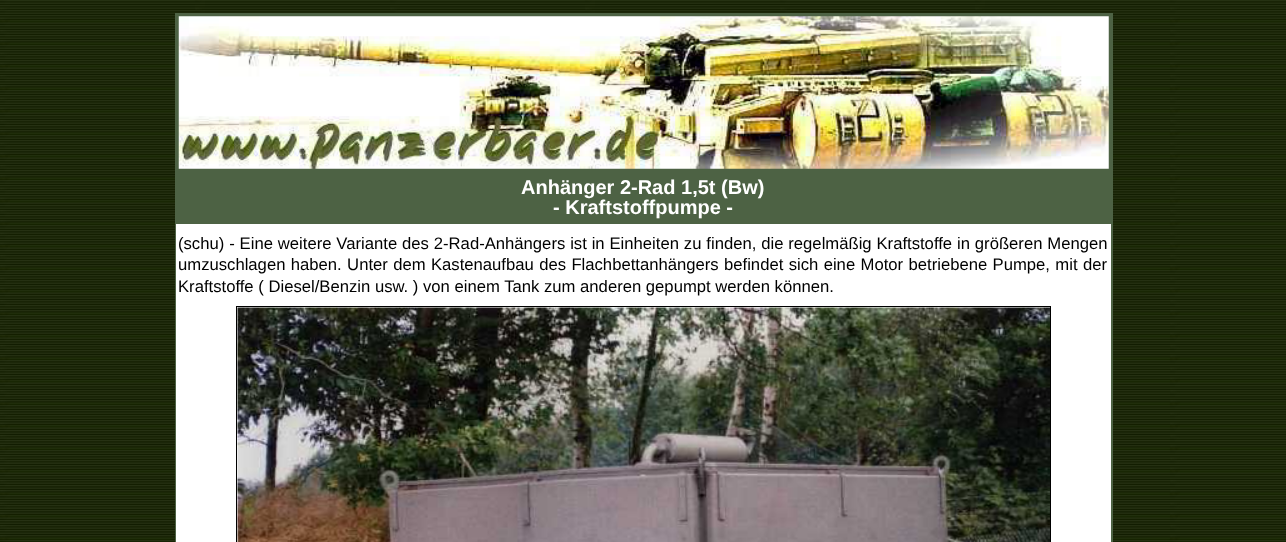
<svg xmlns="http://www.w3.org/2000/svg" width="1286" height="542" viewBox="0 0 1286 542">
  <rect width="100%" height="100%" fill="#ffffff"/>
  <image x="0" y="0" width="1286" height="542" href="img1.png"/>
  <rect x="175" y="13" width="938" height="529" fill="#4d6244"/>
  <image x="178" y="16" width="931" height="153" href="img2.png"/>
  <text x="521" y="194" font-family="Liberation Sans" font-size="20" font-weight="bold" fill="#ffffff">Anhänger 2-Rad 1,5t (Bw)</text>
  <text x="553" y="214" font-family="Liberation Sans" font-size="20" font-weight="bold" fill="#ffffff">- Kraftstoffpumpe -</text>
  <rect x="176" y="224" width="935" height="318" fill="#ffffff"/>
  <text x="178" y="249" word-spacing="0.25" font-family="Liberation Sans" font-size="16.67" fill="#000000">(schu) - Eine weitere Variante des 2-Rad-Anhängers ist in Einheiten zu finden, die regelmäßig Kraftstoffe in größeren Mengen</text>
  <text x="178" y="270" word-spacing="0.75" font-family="Liberation Sans" font-size="16.67" fill="#000000">umzuschlagen haben. Unter dem Kastenaufbau des Flachbettanhängers befindet sich eine Motor betriebene Pumpe, mit der</text>
  <text x="178" y="292" font-family="Liberation Sans" font-size="16.67" fill="#000000">Kraftstoffe ( Diesel/Benzin usw. ) von einem Tank zum anderen gepumpt werden können.</text>
  <rect x="236.5" y="306.5" width="814" height="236" fill="none" stroke="#000000"/>
  <image x="237" y="307" width="813" height="235" href="img3.png"/>
</svg>
